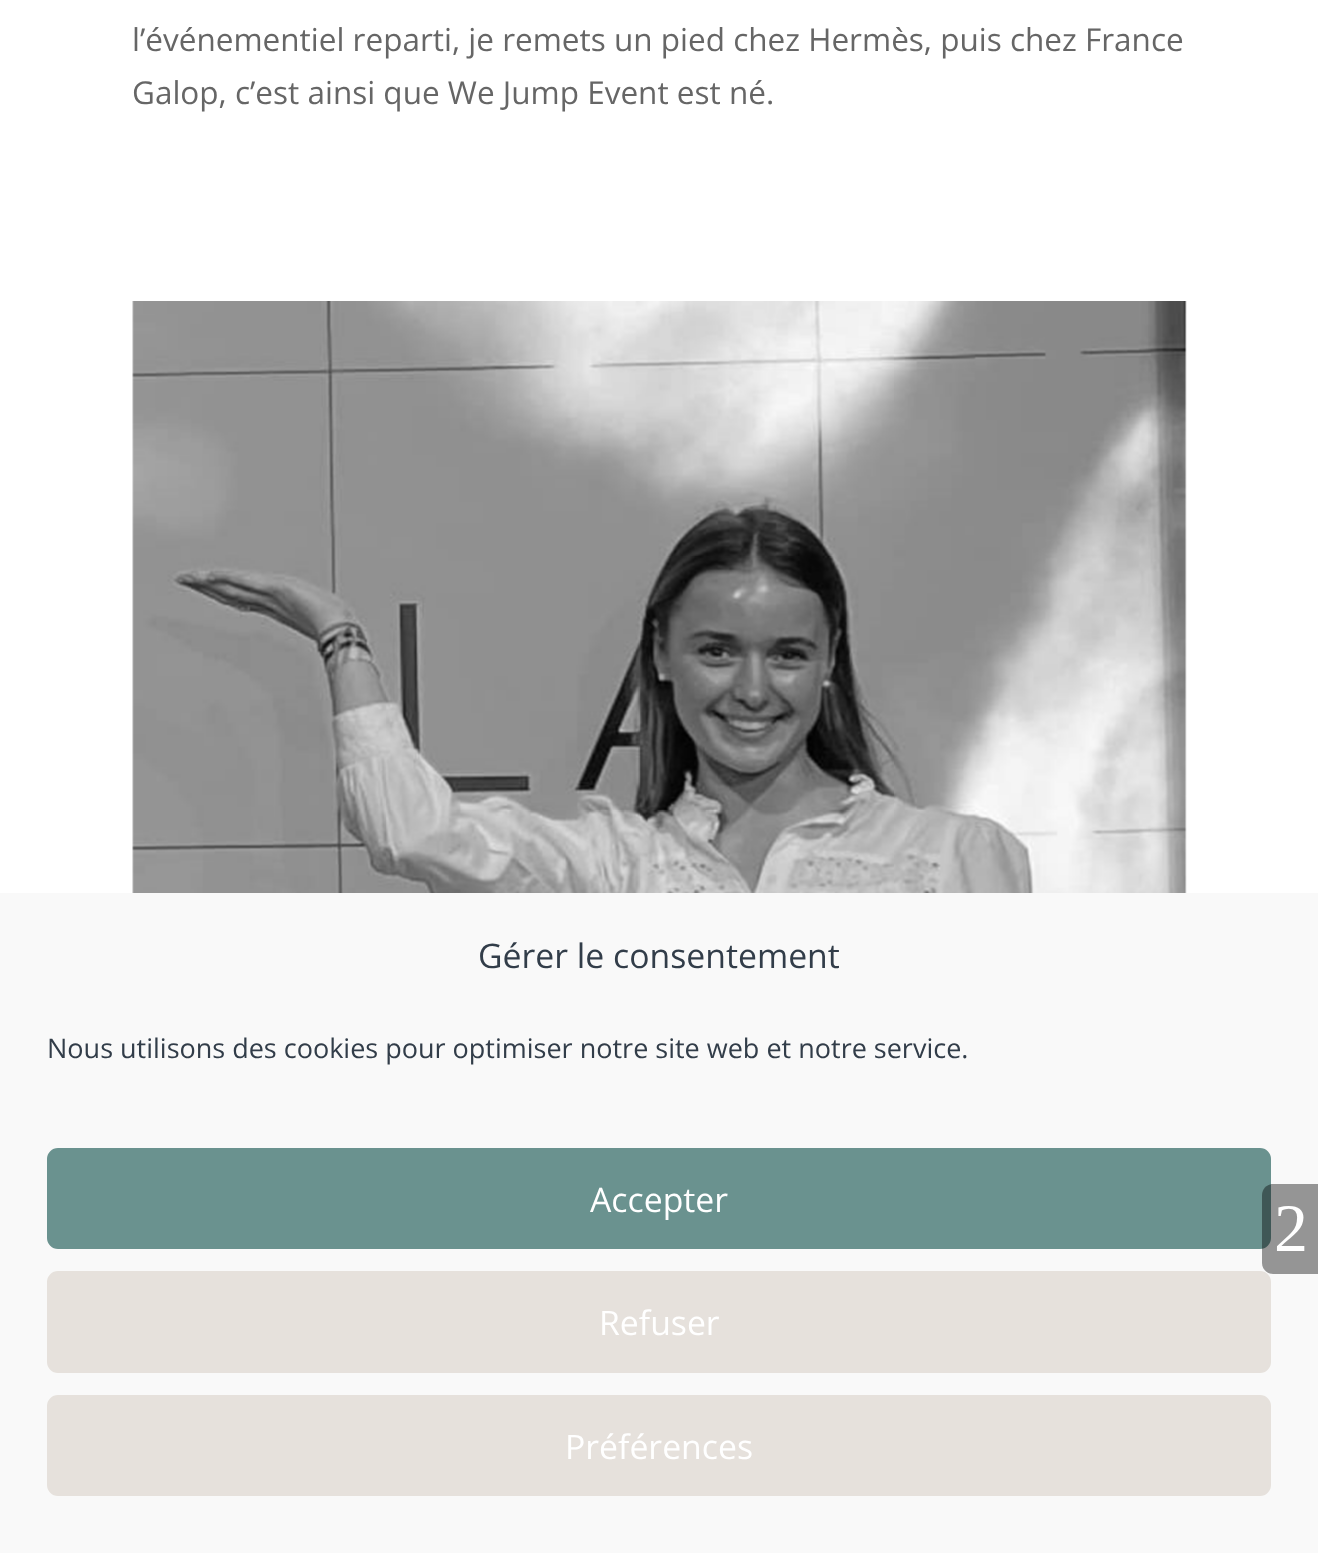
<svg xmlns="http://www.w3.org/2000/svg" width="1318" height="1553" viewBox="0 0 1318 1553">
  <rect width="100%" height="100%" fill="#ffffff"/>
  <text x="132" y="51" font-family="Open Sans" font-size="31.5" fill="#666666">l’événementiel reparti, je remets un pied chez Hermès, puis chez France</text>
  <text x="132" y="104" font-family="Open Sans" font-size="31.5" fill="#666666">Galop, c’est ainsi que We Jump Event est né.</text>
  <image x="132" y="301" width="1055" height="592" href="img1.png"/>
  <rect x="0" y="893" width="1318" height="660" fill="#f9f9f9"/>
  <text x="478" y="968" font-family="Open Sans" font-size="33.75" fill="#323d49">Gérer le consentement</text>
  <text x="47" y="1058" font-family="Open Sans" font-size="27" fill="#323d49">Nous utilisons des cookies pour optimiser notre site web et notre service.</text>
  <rect x="48" y="1149" width="1222" height="99" rx="10" fill="#6a928f" stroke="#6a928f" stroke-width="2"/>
  <text x="590" y="1212" font-family="Open Sans" font-size="33.75" fill="#ffffff">Accepter</text>
  <rect x="48" y="1272" width="1222" height="100" rx="10" fill="#e6e1dc" stroke="#e6e1dc" stroke-width="2"/>
  <text x="599" y="1335" font-family="Open Sans" font-size="33.75" fill="#ffffff">Refuser</text>
  <rect x="48" y="1396" width="1222" height="99" rx="10" fill="#e6e1dc" stroke="#e6e1dc" stroke-width="2"/>
  <text x="565" y="1459" font-family="Open Sans" font-size="33.75" fill="#ffffff">Préférences</text>
  <path d="M1273 1184H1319V1274H1273C1267 1274 1262 1269 1262 1263V1195C1262 1189 1267 1184 1273 1184Z" fill="#000000" fill-opacity="0.4"/>
  <text x="1274" y="1251" font-family="Liberation Serif" font-size="68" fill="#ffffff">2</text>
</svg>
